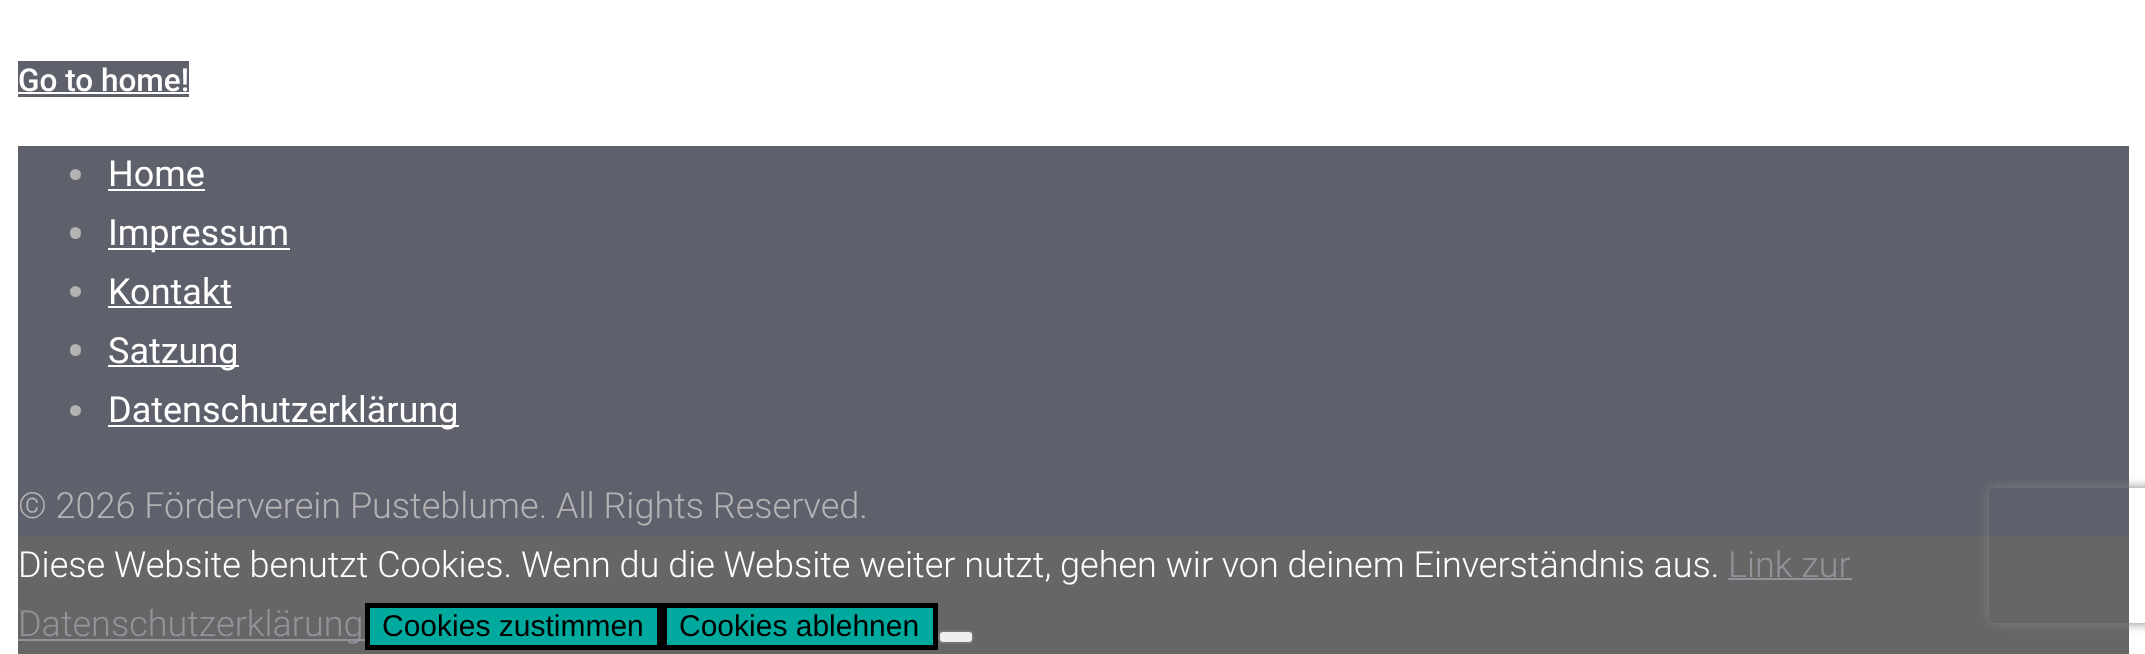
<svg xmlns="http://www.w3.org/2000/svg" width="2145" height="654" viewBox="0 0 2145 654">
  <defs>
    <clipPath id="clip1"><path d="M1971 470H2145V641H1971ZM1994 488H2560C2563 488 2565 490 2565 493V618C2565 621 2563 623 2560 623H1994C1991 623 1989 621 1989 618V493C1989 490 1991 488 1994 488Z" clip-rule="evenodd"/></clipPath>
    <filter id="blur1" x="-50%" y="-200%" width="200%" height="500%"><feGaussianBlur stdDeviation="5.5"/></filter>
  </defs>
  <rect width="100%" height="100%" fill="#ffffff"/>
  <rect x="18" y="61" width="171" height="36" fill="#5e606c"/>
  <text x="18" y="91" font-family="Roboto" font-size="31.5" font-weight="500" fill="#ffffff">Go to home!</text>
  <rect x="18" y="92" width="171" height="2" fill="#ffffff"/>
  <rect x="18" y="146" width="2111" height="390" fill="#5e606c"/>
  <circle cx="75.5" cy="174.5" r="5.5" fill="#b3b3b3"/>
  <text x="108" y="186" font-family="Roboto" font-size="36" fill="#ffffff">Home</text>
  <rect x="108" y="189" width="97" height="2" fill="#ffffff"/>
  <rect x="70" y="227" width="11" height="12" rx="5.5" fill="#b3b3b3"/>
  <rect x="108" y="248" width="182" height="2" fill="#ffffff"/>
  <text x="108" y="245" font-family="Roboto" font-size="36" fill="#ffffff">Impressum</text>
  <circle cx="75.5" cy="291.5" r="5.5" fill="#b3b3b3"/>
  <text x="108" y="304" font-family="Roboto" font-size="36" fill="#ffffff">Kontakt</text>
  <rect x="108" y="306" width="124" height="2" fill="#ffffff"/>
  <rect x="70" y="344" width="11" height="12" rx="5.5" fill="#b3b3b3"/>
  <rect x="108" y="365" width="131" height="2" fill="#ffffff"/>
  <text x="108" y="363" font-family="Roboto" font-size="36" fill="#ffffff">Satzung</text>
  <circle cx="75.5" cy="410.5" r="5.5" fill="#b3b3b3"/>
  <rect x="108" y="425" width="351" height="2" fill="#ffffff"/>
  <text x="108" y="422" font-family="Roboto" font-size="36" fill="#ffffff">Datenschutzerklärung</text>
  <text x="18" y="518" font-family="Roboto" font-size="36" font-weight="300" fill="#b3b3b3">© 2026 Förderverein Pusteblume. All Rights Reserved.</text>
  <rect x="18" y="536" width="2111" height="118" fill="#666666"/>
  <text x="18" y="577" font-family="Roboto" font-size="36" font-weight="300" fill="#ffffff">Diese Website benutzt Cookies. Wenn du die Website weiter nutzt, gehen wir von deinem Einverständnis aus.</text>
  <text x="1728" y="577" font-family="Roboto" font-size="36" font-weight="300" fill="#94929b">Link zur</text>
  <rect x="1728" y="578" width="124" height="2" fill="#94929b"/>
  <rect x="18" y="639" width="347" height="2" fill="#94929b"/>
  <text x="18" y="636" font-family="Roboto" font-size="36" font-weight="300" fill="#94929b">Datenschutzerklärung</text>
  <rect x="367.5" y="605.5" width="292" height="42" fill="#00a99d" stroke="#000000" stroke-width="5"/>
  <text x="382" y="636" font-family="Liberation Sans" font-size="30" fill="#000000">Cookies zustimmen</text>
  <rect x="664.5" y="605.5" width="271" height="42" fill="#00a99d" stroke="#000000" stroke-width="5"/>
  <text x="679" y="636" font-family="Liberation Sans" font-size="30" fill="#000000">Cookies ablehnen</text>
  <rect x="939" y="631" width="34" height="12" rx="4" fill="#efefef" stroke="#767676" stroke-width="2"/>
  <g clip-path="url(#clip1)">
    <rect x="1989" y="488" width="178" height="135" rx="5" fill="#808080" filter="url(#blur1)"/>
  </g>
</svg>
